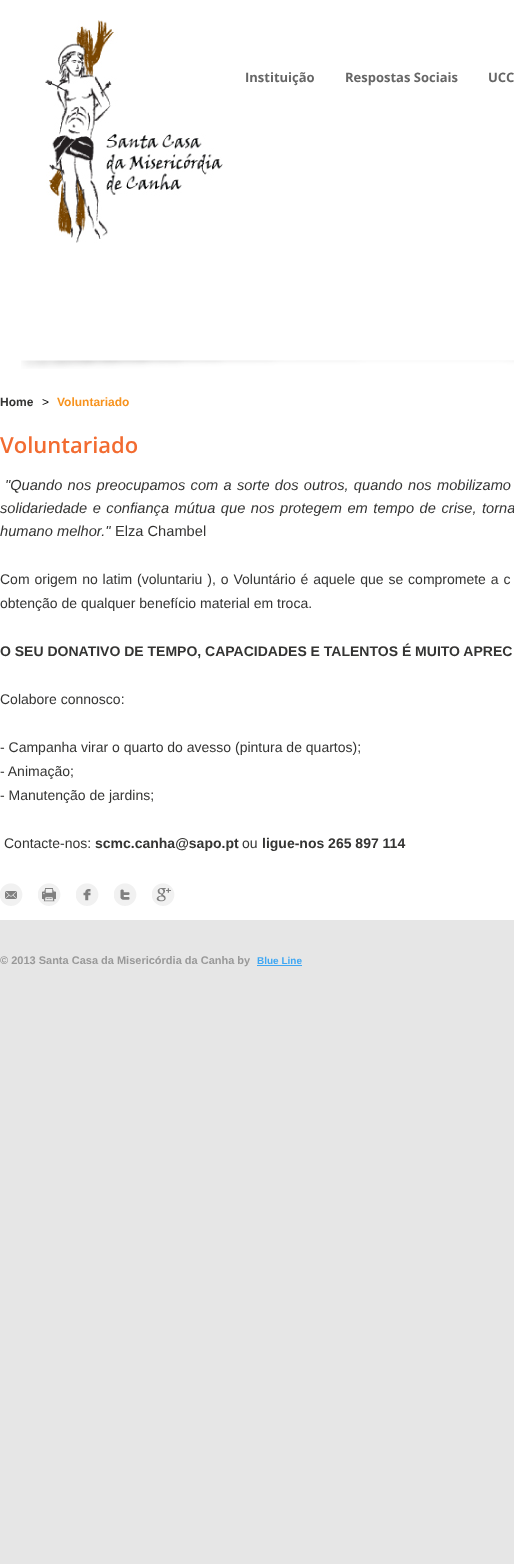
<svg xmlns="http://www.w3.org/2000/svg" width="514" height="1564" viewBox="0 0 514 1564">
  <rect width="100%" height="100%" fill="#e6e6e6"/>
  <rect x="0" y="0" width="514" height="920" fill="#ffffff"/>
  <text x="245" y="82" font-family="Open Sans" font-size="13" font-weight="bold" fill="#666666">Instituição</text>
  <text x="345" y="82" font-family="Open Sans" font-size="13" font-weight="bold" fill="#666666">Respostas Sociais</text>
  <text x="488" y="82" font-family="Open Sans" font-size="13" font-weight="bold" fill="#666666">UCC</text>
  <image x="45" y="20" width="178" height="223" href="img1.png"/>
  <image x="21" y="360" width="493" height="9" href="img2.png"/>
  <text x="0" y="406" font-family="Liberation Sans" font-size="12" font-weight="bold" fill="#343433">Home</text>
  <text x="42" y="406" font-family="Liberation Sans" font-size="12" fill="#000000">&gt;</text>
  <text x="57" y="406" font-family="Liberation Sans" font-size="12" font-weight="bold" fill="#f7931e">Voluntariado</text>
  <text x="0" y="453" font-family="Open Sans" font-size="22" font-weight="600" fill="#f26b30">Voluntariado</text>
  <text x="5" y="490" word-spacing="1.25" font-family="Liberation Sans" font-size="14.65" font-style="italic" fill="#343433">"Quando nos preocupamos com a sorte dos outros, quando nos mobilizamo</text>
  <text x="0" y="513" word-spacing="1.5" font-family="Liberation Sans" font-size="14.65" font-style="italic" fill="#343433">solidariedade e confiança mútua que nos protegem em tempo de crise, torna</text>
  <text x="0" y="536" font-family="Liberation Sans" font-size="14.65" font-style="italic" fill="#343433">humano melhor."</text>
  <text x="115" y="536" font-family="Liberation Sans" font-size="14.65" fill="#343433">Elza Chambel</text>
  <text x="0" y="584" word-spacing="1" font-family="Liberation Sans" font-size="14" fill="#343433">Com origem no latim (voluntariu ), o Voluntário é aquele que se compromete a c</text>
  <text x="0" y="608" font-family="Liberation Sans" font-size="14" fill="#343433">obtenção de qualquer benefício material em troca.</text>
  <text x="0" y="656" font-family="Liberation Sans" font-size="14" font-weight="bold" fill="#343433">O SEU DONATIVO DE TEMPO, CAPACIDADES E TALENTOS É MUITO APREC</text>
  <text x="0" y="704" font-family="Liberation Sans" font-size="14" fill="#343433">Colabore connosco:</text>
  <text x="0" y="752" font-family="Liberation Sans" font-size="14" fill="#343433">- Campanha virar o quarto do avesso (pintura de quartos);</text>
  <text x="0" y="776" font-family="Liberation Sans" font-size="14" fill="#343433">- Animação;</text>
  <text x="0" y="800" font-family="Liberation Sans" font-size="14" fill="#343433">- Manutenção de jardins;</text>
  <text x="4" y="848" font-family="Liberation Sans" font-size="14" fill="#343433">Contacte-nos:</text>
  <text x="95" y="848" font-family="Liberation Sans" font-size="14" font-weight="bold" fill="#343433">scmc.canha@sapo.pt</text>
  <text x="242" y="848" font-family="Liberation Sans" font-size="14" fill="#343433">ou</text>
  <text x="262" y="848" font-family="Liberation Sans" font-size="14" font-weight="bold" fill="#343433">ligue-nos 265 897 114</text>
  <image x="0" y="883" width="23" height="23" href="img3.png"/>
  <image x="38" y="883" width="23" height="23" href="img4.png"/>
  <image x="76" y="883" width="23" height="23" href="img5.png"/>
  <image x="114" y="883" width="23" height="23" href="img6.png"/>
  <image x="152" y="883" width="23" height="23" href="img7.png"/>
  <text x="0" y="964" font-family="Liberation Sans" font-size="11" font-weight="bold" fill="#999999">© 2013 Santa Casa da Misericórdia da Canha by</text>
  <text x="257" y="964" font-family="Liberation Sans" font-size="10" font-weight="bold" fill="#3fa7f3">Blue Line</text>
  <rect x="257" y="965" width="45" height="1" fill="#3fa7f3"/>
</svg>
